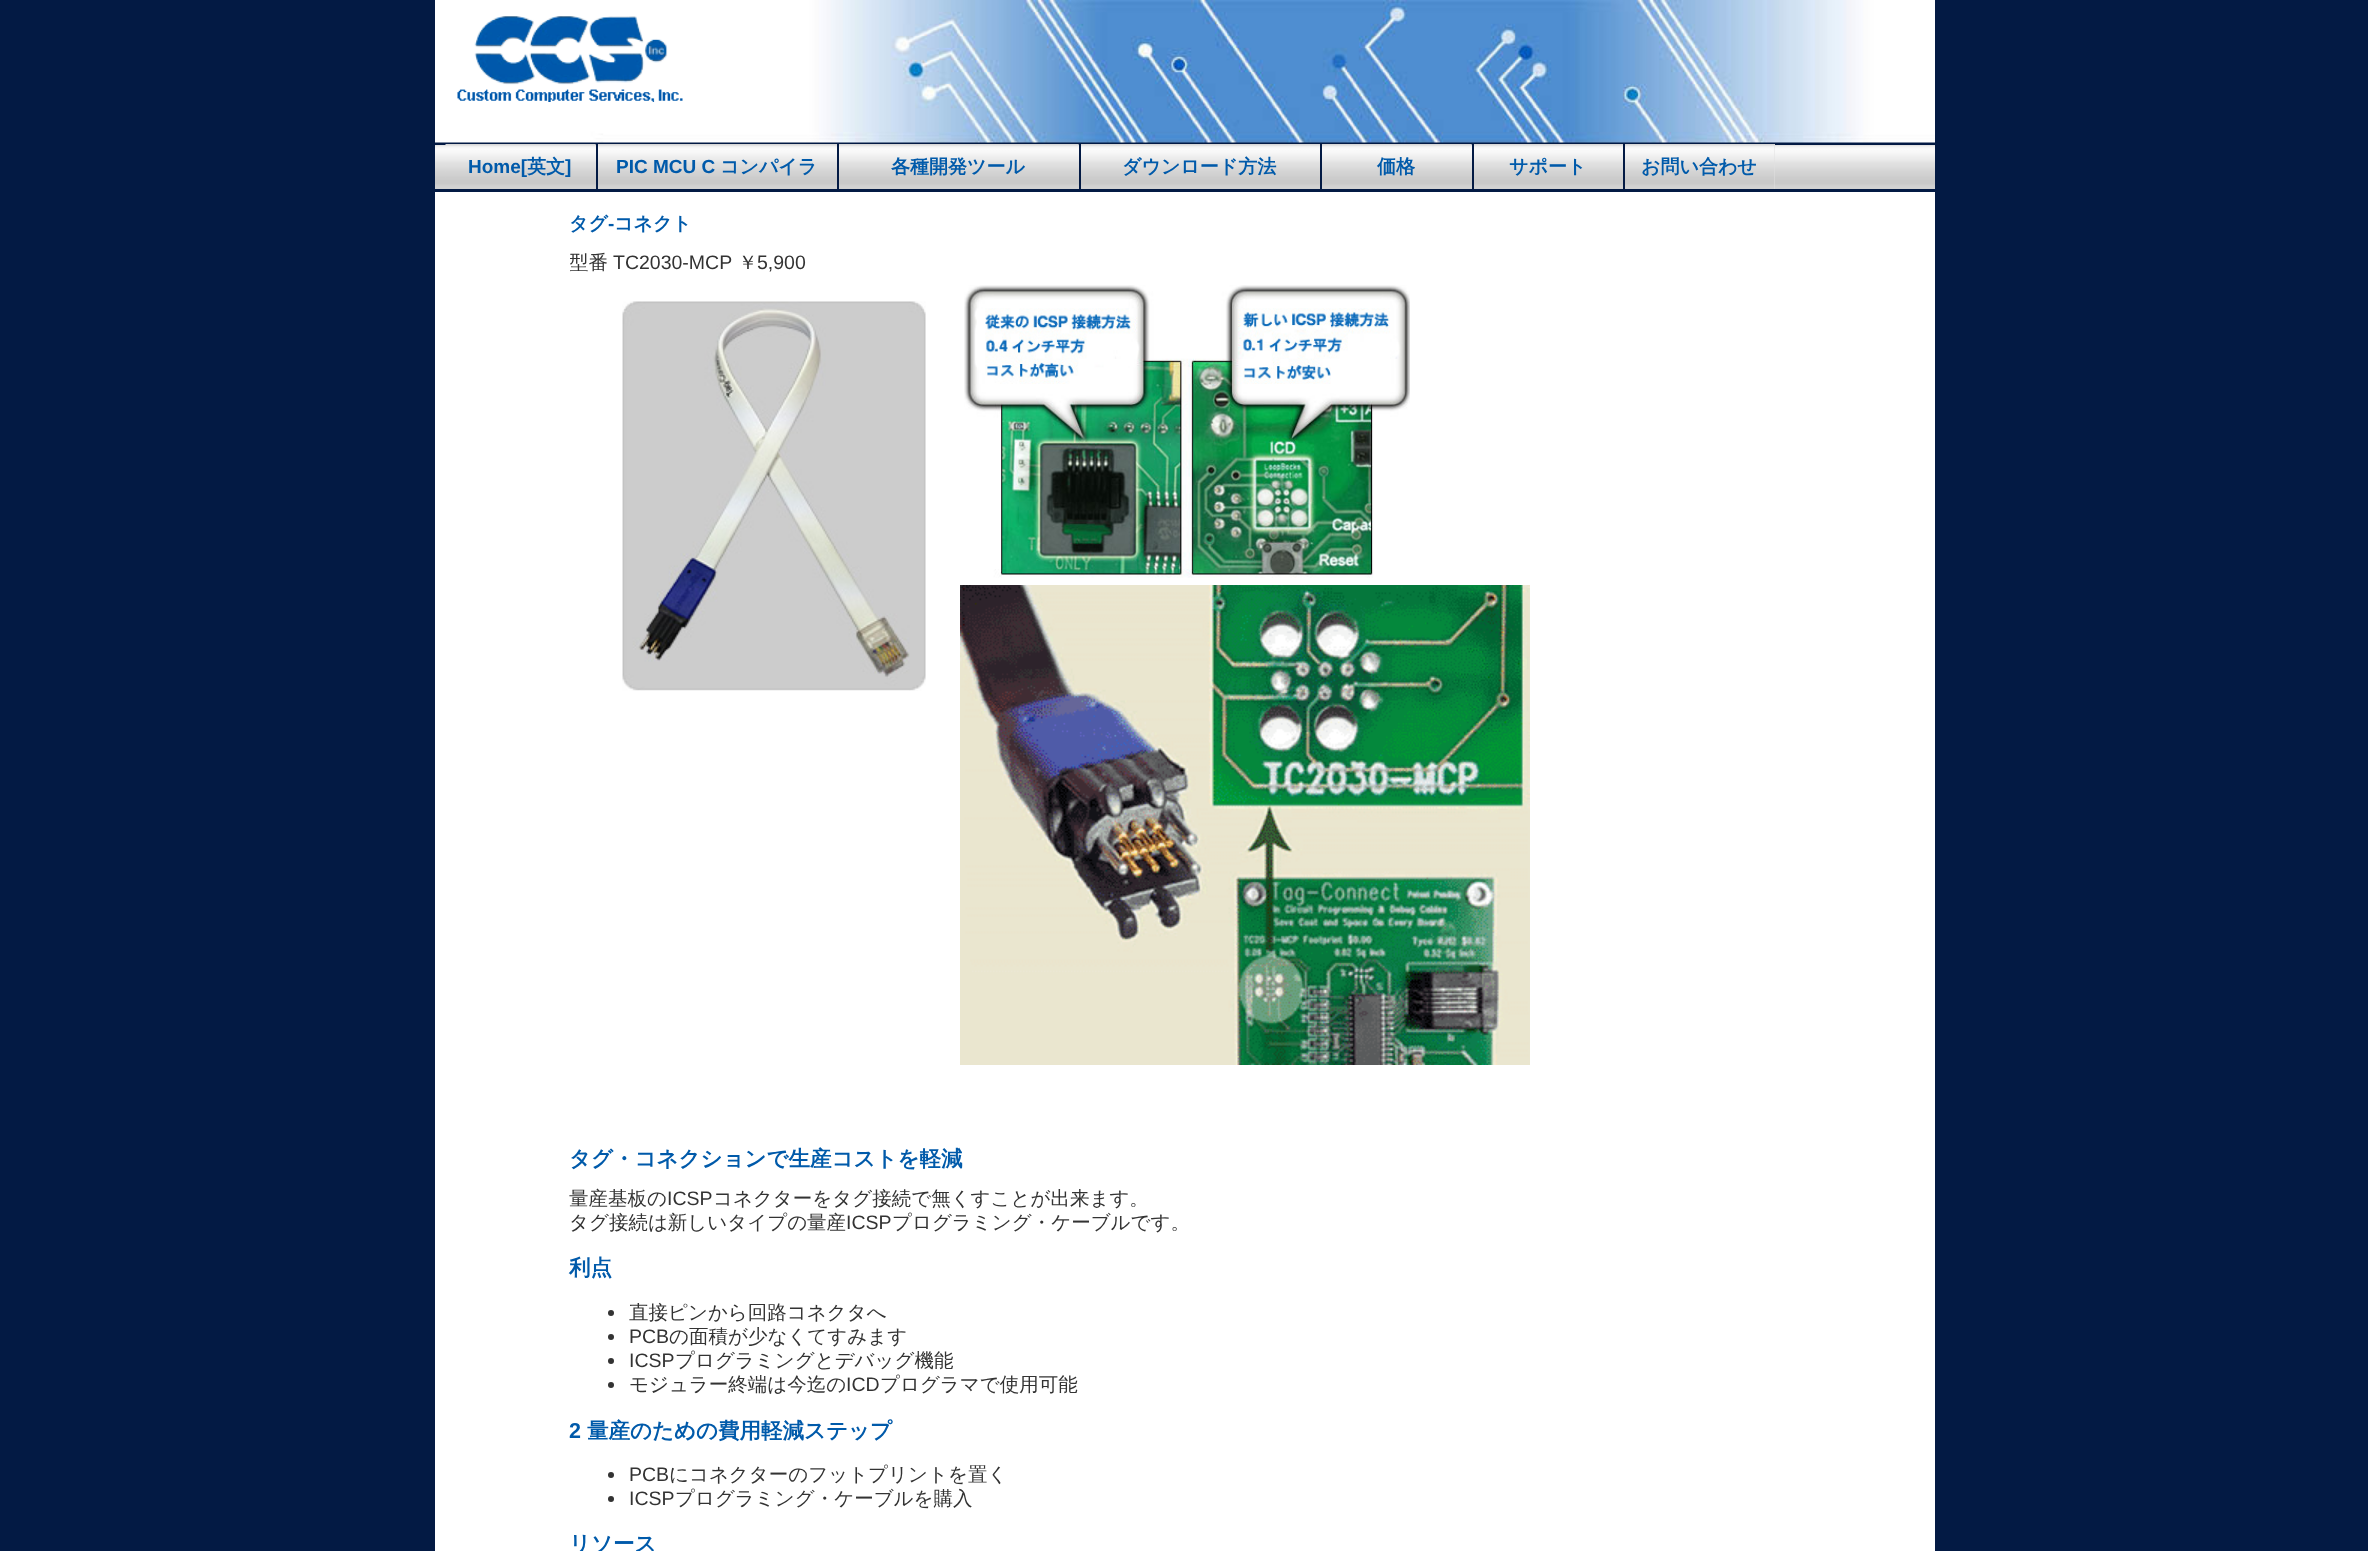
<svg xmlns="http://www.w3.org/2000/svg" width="2368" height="1551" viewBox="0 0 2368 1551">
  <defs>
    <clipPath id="clip1"><rect x="570" y="192" width="1230" height="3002"/></clipPath>
  </defs>
  <rect width="100%" height="100%" fill="#031a44"/>
  <image x="435" y="0" width="1500" height="143" href="img1.png"/>
  <image x="457" y="16" width="226" height="86" href="img2.png"/>
  <rect x="435" y="192" width="1500" height="1359" fill="#ffffff"/>
  <image x="435" y="145" width="1500" height="44" href="img3.png"/>
  <image x="445" y="144" width="151" height="45" href="img4.png"/>
  <text x="468" y="173" font-family="Liberation Sans" font-size="19" font-weight="bold" fill="#005aaa">Home[</text>
  <text x="527" y="173" font-family="WenQuanYi Zen Hei" font-size="19" font-weight="bold" fill="#005aaa">英文</text>
  <text x="565" y="173" font-family="Liberation Sans" font-size="19" font-weight="bold" fill="#005aaa">]</text>
  <image x="595" y="144" width="242" height="45" href="img5.png"/>
  <rect x="596" y="144" width="2" height="45" fill="#031a44"/>
  <text x="616" y="173" font-family="Liberation Sans" font-size="19" font-weight="bold" fill="#005aaa">PIC MCU C</text>
  <text x="720" y="173" font-family="WenQuanYi Zen Hei" font-size="19" font-weight="bold" fill="#005aaa">コンパイラ</text>
  <image x="839" y="144" width="240" height="45" href="img6.png"/>
  <rect x="837" y="144" width="2" height="45" fill="#031a44"/>
  <text x="891" y="173" font-family="WenQuanYi Zen Hei" font-size="19" font-weight="bold" fill="#005aaa">各種開発ツール</text>
  <image x="1078" y="144" width="242" height="45" href="img7.png"/>
  <rect x="1079" y="144" width="2" height="45" fill="#031a44"/>
  <text x="1122" y="173" font-family="WenQuanYi Zen Hei" font-size="19" font-weight="bold" fill="#005aaa">ダウンロード方法</text>
  <image x="1322" y="144" width="150" height="45" href="img8.png"/>
  <rect x="1320" y="144" width="2" height="45" fill="#031a44"/>
  <text x="1377" y="173" font-family="WenQuanYi Zen Hei" font-size="19" font-weight="bold" fill="#005aaa">価格</text>
  <image x="1471" y="144" width="152" height="45" href="img9.png"/>
  <rect x="1472" y="144" width="2" height="45" fill="#031a44"/>
  <text x="1509" y="173" font-family="WenQuanYi Zen Hei" font-size="19" font-weight="bold" fill="#005aaa">サポート</text>
  <rect x="1774" y="144" width="1" height="45" fill="#e1e1e1"/>
  <image x="1625" y="144" width="150" height="45" href="img10.png"/>
  <rect x="1623" y="144" width="2" height="45" fill="#031a44"/>
  <text x="1641" y="173" font-family="WenQuanYi Zen Hei" font-size="19" font-weight="bold" fill="#005aaa">お問い合わせ</text>
  <text x="569" y="230" font-family="WenQuanYi Zen Hei" font-size="19" font-weight="bold" fill="#005aaa">タグ</text>
  <text x="608" y="230" font-family="Liberation Sans" font-size="19" font-weight="bold" fill="#005aaa">-</text>
  <text x="614" y="230" font-family="WenQuanYi Zen Hei" font-size="19" font-weight="bold" fill="#005aaa">コネクト</text>
  <g clip-path="url(#clip1)">
    <text x="569" y="269" font-family="WenQuanYi Zen Hei" font-size="19.5" font-weight="500" fill="#333333">型番</text>
  </g>
  <text x="613" y="269" font-family="Liberation Sans" font-size="19.5" fill="#333333">TC2030-MCP</text>
  <text x="738" y="269" font-family="WenQuanYi Zen Hei" font-size="19.5" font-weight="500" fill="#333333">￥</text>
  <text x="757" y="269" font-family="Liberation Sans" font-size="19.5" fill="#333333">5,900</text>
  <image x="622" y="301" width="304" height="390" href="img11.png"/>
  <image x="964" y="285" width="446" height="293" href="img12.png"/>
  <image x="960" y="585" width="570" height="480" href="img13.png"/>
  <text x="569" y="1166" font-family="WenQuanYi Zen Hei" font-size="21.5" font-weight="bold" fill="#005aaa">タグ・コネクションで生産コストを軽減</text>
  <text x="569" y="1205" font-family="WenQuanYi Zen Hei" font-size="19.5" font-weight="500" fill="#333333">量産基板の</text>
  <text x="667" y="1205" font-family="Liberation Sans" font-size="19.5" fill="#333333">ICSP</text>
  <text x="713" y="1205" font-family="WenQuanYi Zen Hei" font-size="19.5" font-weight="500" fill="#333333">コネクターをタグ接続で無くすことが出来ます。</text>
  <text x="569" y="1229" font-family="WenQuanYi Zen Hei" font-size="19.5" font-weight="500" fill="#333333">タグ接続は新しいタイプの量産</text>
  <text x="846" y="1229" font-family="Liberation Sans" font-size="19.5" fill="#333333">ICSP</text>
  <text x="892" y="1229" font-family="WenQuanYi Zen Hei" font-size="19.5" font-weight="500" fill="#333333">プログラミング・ケーブルです。</text>
  <text x="569" y="1275" font-family="WenQuanYi Zen Hei" font-size="21.5" font-weight="bold" fill="#005aaa">利点</text>
  <circle cx="611" cy="1313" r="3" fill="#333333"/>
  <text x="629" y="1319" font-family="WenQuanYi Zen Hei" font-size="19.5" font-weight="500" fill="#333333">直接ピンから回路コネクタへ</text>
  <circle cx="611" cy="1337" r="3" fill="#333333"/>
  <text x="629" y="1343" font-family="Liberation Sans" font-size="19.5" fill="#333333">PCB</text>
  <text x="669" y="1343" font-family="WenQuanYi Zen Hei" font-size="19.5" font-weight="500" fill="#333333">の面積が少なくてすみます</text>
  <circle cx="611" cy="1361" r="3" fill="#333333"/>
  <text x="629" y="1367" font-family="Liberation Sans" font-size="19.5" fill="#333333">ICSP</text>
  <text x="675" y="1367" font-family="WenQuanYi Zen Hei" font-size="19.5" font-weight="500" fill="#333333">プログラミングとデバッグ機能</text>
  <circle cx="611" cy="1385" r="3" fill="#333333"/>
  <text x="629" y="1391" font-family="WenQuanYi Zen Hei" font-size="19.5" font-weight="500" fill="#333333">モジュラー終端は今迄の</text>
  <text x="846" y="1391" font-family="Liberation Sans" font-size="19.5" fill="#333333">ICD</text>
  <text x="880" y="1391" font-family="WenQuanYi Zen Hei" font-size="19.5" font-weight="500" fill="#333333">プログラマで使用可能</text>
  <text x="569" y="1438" font-family="Liberation Sans" font-size="21.5" font-weight="bold" fill="#005aaa">2</text>
  <text x="587" y="1438" font-family="WenQuanYi Zen Hei" font-size="21.5" font-weight="bold" fill="#005aaa">量産のための費用軽減ステップ</text>
  <circle cx="611" cy="1475" r="3" fill="#333333"/>
  <text x="629" y="1481" font-family="Liberation Sans" font-size="19.5" fill="#333333">PCB</text>
  <text x="669" y="1481" font-family="WenQuanYi Zen Hei" font-size="19.5" font-weight="500" fill="#333333">にコネクターのフットプリントを置く</text>
  <circle cx="611" cy="1499" r="3" fill="#333333"/>
  <text x="629" y="1505" font-family="Liberation Sans" font-size="19.5" fill="#333333">ICSP</text>
  <text x="675" y="1505" font-family="WenQuanYi Zen Hei" font-size="19.5" font-weight="500" fill="#333333">プログラミング・ケーブルを購入</text>
  <text x="569" y="1551" font-family="WenQuanYi Zen Hei" font-size="21.5" font-weight="bold" fill="#005aaa">リソース</text>
</svg>
